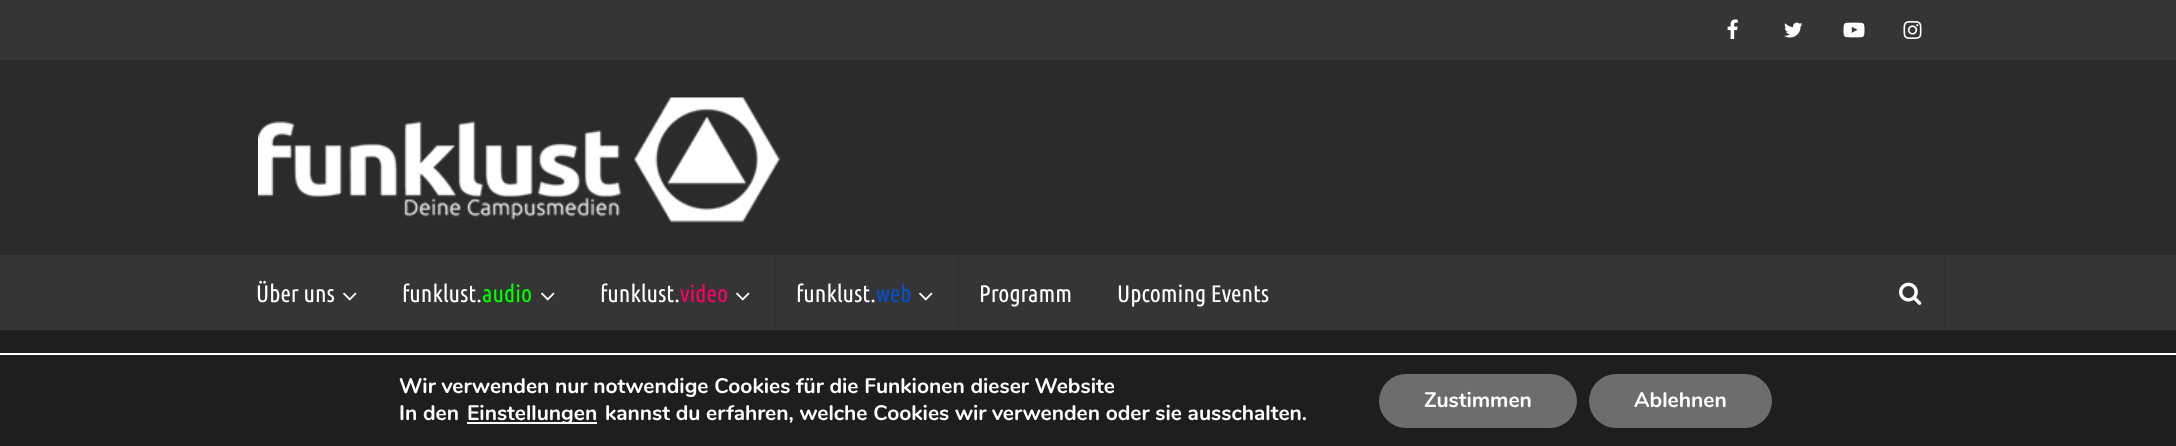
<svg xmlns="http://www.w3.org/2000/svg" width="2176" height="446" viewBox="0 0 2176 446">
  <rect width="100%" height="100%" fill="#1e1e1e"/>
  <rect x="0" y="60" width="2176" height="195" fill="#2b2b2b"/>
  <rect x="0" y="0" width="2176" height="60" fill="#353535"/>
  <image x="1727" y="19" width="11" height="20" href="img1.png"/>
  <image x="1784" y="22" width="19" height="16" href="img2.png"/>
  <image x="1843" y="22" width="22" height="16" href="img3.png"/>
  <image x="1903" y="21" width="19" height="18" href="img4.png"/>
  <image x="258" y="97" width="523" height="126" href="img5.png"/>
  <rect x="0" y="255" width="2176" height="75" fill="#353535"/>
  <rect x="380" y="255" width="1" height="75" fill="#323232"/>
  <rect x="233" y="255" width="1" height="75" fill="#323232"/>
  <text x="256" y="302" font-family="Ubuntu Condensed" font-size="24" fill="#ffffff">Über uns</text>
  <image x="343" y="292" width="14" height="9" href="img6.png"/>
  <rect x="578" y="255" width="1" height="75" fill="#323232"/>
  <text x="402" y="302" font-family="Ubuntu Condensed" font-size="24" fill="#ffffff">funklust.</text>
  <text x="482" y="302" font-family="Ubuntu Condensed" font-size="24" fill="#00ff00">audio</text>
  <image x="541" y="292" width="14" height="9" href="img6.png"/>
  <rect x="774" y="255" width="2" height="75" fill="#323232"/>
  <text x="600" y="302" font-family="Ubuntu Condensed" font-size="24" fill="#ffffff">funklust.</text>
  <text x="680" y="302" font-family="Ubuntu Condensed" font-size="24" fill="#ff0066">video</text>
  <image x="736" y="292" width="14" height="9" href="img6.png"/>
  <rect x="957" y="255" width="2" height="75" fill="#323232"/>
  <text x="796" y="302" font-family="Ubuntu Condensed" font-size="24" fill="#ffffff">funklust.</text>
  <text x="876" y="302" font-family="Ubuntu Condensed" font-size="24" fill="#0550d1">web</text>
  <image x="919" y="292" width="14" height="9" href="img6.png"/>
  <rect x="1095" y="255" width="2" height="75" fill="#323232"/>
  <text x="979" y="302" font-family="Ubuntu Condensed" font-size="24" fill="#ffffff">Programm</text>
  <rect x="1292" y="255" width="1" height="75" fill="#323232"/>
  <text x="1117" y="302" font-family="Ubuntu Condensed" font-size="24" fill="#ffffff">Upcoming Events</text>
  <rect x="1944" y="255" width="2" height="75" fill="#323232"/>
  <rect x="1875" y="255" width="1" height="75" fill="#323232"/>
  <image x="1899" y="282" width="23" height="23" href="img7.png"/>
  <rect x="0" y="353" width="2176" height="2" fill="#ffffff"/>
  <text x="399" y="393" font-family="Nunito" font-size="21" font-weight="bold" fill="#ffffff">Wir verwenden nur notwendige Cookies für die Funkionen dieser Website</text>
  <text x="399" y="420" font-family="Nunito" font-size="21" font-weight="bold" fill="#ffffff">In den</text>
  <rect x="467" y="422" width="130" height="2" fill="#ffffff"/>
  <text x="467" y="420" font-family="Nunito" font-size="21" font-weight="bold" fill="#ffffff">Einstellungen</text>
  <text x="605" y="420" font-family="Nunito" font-size="21" font-weight="bold" fill="#ffffff">kannst du erfahren, welche Cookies wir verwenden oder sie ausschalten.</text>
  <rect x="1379" y="374" width="198" height="54" rx="27" fill="#6d6d6d"/>
  <text x="1424" y="407" font-family="Nunito" font-size="21" font-weight="bold" fill="#ffffff">Zustimmen</text>
  <rect x="1589" y="374" width="183" height="54" rx="27" fill="#6d6d6d"/>
  <text x="1634" y="407" font-family="Nunito" font-size="21" font-weight="bold" fill="#ffffff">Ablehnen</text>
</svg>
